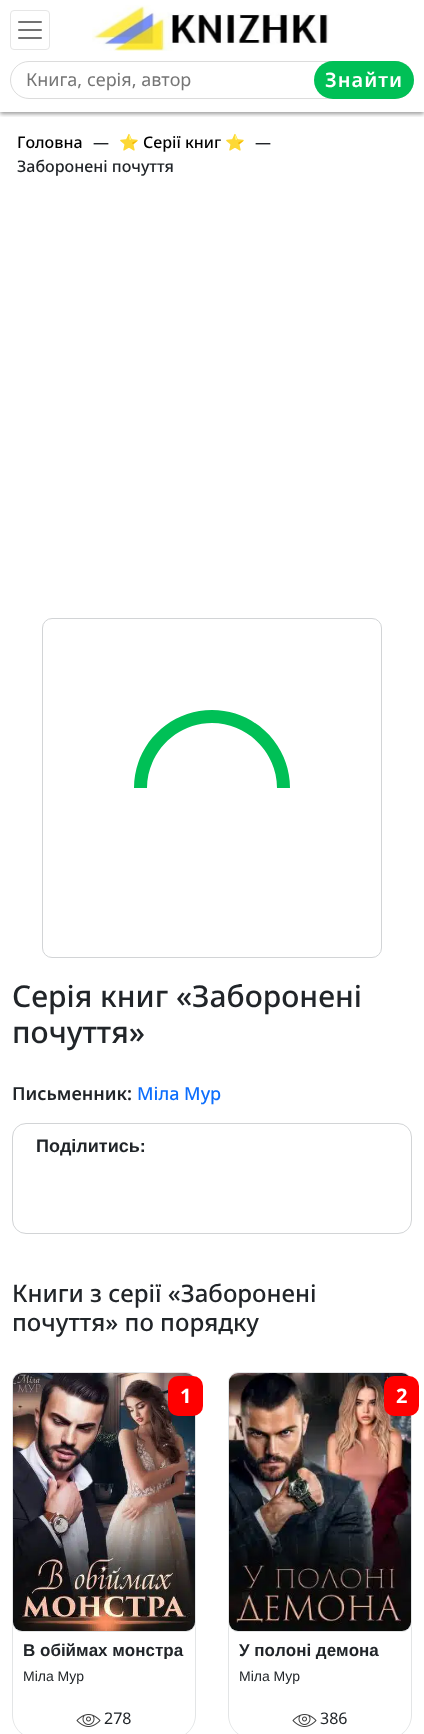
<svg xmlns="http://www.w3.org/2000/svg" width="424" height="1734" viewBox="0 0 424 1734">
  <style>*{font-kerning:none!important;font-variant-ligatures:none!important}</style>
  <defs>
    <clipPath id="clip1"><rect x="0" y="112" width="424" height="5"/></clipPath>
    <filter id="blur1" x="-50%" y="-200%" width="200%" height="500%"><feGaussianBlur stdDeviation="2"/></filter>
    <clipPath id="clip2"><rect x="23" y="1642" width="162" height="17"/></clipPath>
    <clipPath id="clip3"><rect x="239" y="1642" width="162" height="17"/></clipPath>
  </defs>
  <rect width="100%" height="100%" fill="#ffffff"/>
  <g clip-path="url(#clip1)">
    <rect x="0" y="2" width="424" height="112" fill="#000000" fill-opacity="0.4" filter="url(#blur1)"/>
  </g>
  <rect x="10.5" y="10.5" width="39" height="39" rx="3.5" fill="none" stroke="#e6e6e6"/>
  <image x="18" y="21" width="24" height="18" href="img1.png"/>
  <image x="92" y="5" width="237" height="46" href="img2.png"/>
  <rect x="10.5" y="61.5" width="403" height="37" rx="18.5" fill="none" stroke="#dcdcdc"/>
  <text x="26" y="86" font-family="Noto Sans" font-size="18" fill="#757575">Книга, серія, автор</text>
  <rect x="314" y="61" width="100" height="38" rx="19" fill="#00c056"/>
  <text x="325" y="87" font-family="Noto Sans" font-size="20" font-weight="600" letter-spacing="1" fill="#ffffff">Знайти</text>
  <text x="17" y="148" font-family="Noto Sans" font-size="16" font-weight="500" fill="#000000">Головна</text>
  <text x="93" y="148" font-family="Noto Sans" font-size="16" font-weight="500" fill="#212529">—</text>
  <text x="119" y="148" font-family="Noto Color Emoji" font-size="16" fill="#000000">⭐</text>
  <text x="143" y="148" font-family="Noto Sans" font-size="16" font-weight="500" fill="#000000">Серії книг</text>
  <text x="225" y="148" font-family="Noto Color Emoji" font-size="16" fill="#000000">⭐</text>
  <text x="255" y="148" font-family="Noto Sans" font-size="16" font-weight="500" fill="#212529">—</text>
  <text x="17" y="172" font-family="Noto Sans" font-size="16" font-weight="500" fill="#212529">Заборонені почуття</text>
  <rect x="42.5" y="618.5" width="339" height="339" rx="9.5" fill="none" stroke="#d2d4d6"/>
  <path d="M290 788C290 745 255 710 212 710C169 710 134 745 134 788M147 788C147 753 176 723 212 723C248 723 277 753 277 788" fill="#00c056"/>
  <text x="12" y="1007" font-family="Noto Sans" font-size="30" font-weight="500" fill="#212529">Серія книг «Заборонені</text>
  <text x="12" y="1043" font-family="Noto Sans" font-size="30" font-weight="500" fill="#212529">почуття»</text>
  <text x="12" y="1100" font-family="Noto Sans" font-size="18" font-weight="600" fill="#212529">Письменник:</text>
  <text x="137" y="1100" font-family="Noto Sans" font-size="18" font-weight="500" fill="#0d6efd">Міла Мур</text>
  <rect x="12.5" y="1123.5" width="399" height="110" rx="13.5" fill="none" stroke="#d2d4d6"/>
  <text x="36" y="1152" font-family="Liberation Sans" font-size="18" font-weight="bold" fill="#212529">Поділитись:</text>
  <text x="12" y="1302" font-family="Noto Sans" font-size="24" font-weight="500" fill="#212529">Книги з серії «Заборонені</text>
  <text x="12" y="1331" font-family="Noto Sans" font-size="24" font-weight="500" fill="#212529">почуття» по порядку</text>
  <path d="M12 1624H196V1715C196 1728 185 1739 172 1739H36C23 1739 12 1728 12 1715ZM13 1624H195V1715C195 1728 185 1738 172 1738H36C23 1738 13 1728 13 1715Z" fill="#e3e5e6" fill-rule="evenodd"/>
  <rect x="12" y="1372" width="184" height="260" rx="8" fill="#ffffff"/>
  <rect x="12.5" y="1372.5" width="183" height="259" rx="9.5" fill="none" stroke="#e3e5e6"/>
  <image x="13" y="1373" width="182" height="258" href="img3.png"/>
  <rect x="168" y="1376" width="35" height="40" rx="10" fill="#ff0000"/>
  <text x="180" y="1403" font-family="Noto Sans" font-size="20" font-weight="bold" fill="#ffffff">1</text>
  <g clip-path="url(#clip2)">
    <text x="23" y="1656" font-family="Liberation Sans" font-size="17" font-weight="bold" fill="#212529">В обіймах монстра</text>
  </g>
  <text x="23" y="1681" font-family="Liberation Sans" font-size="14" fill="#212529">Міла Мур</text>
  <image x="76" y="1714" width="25" height="13" href="img4.png"/>
  <text x="104" y="1724" font-family="Noto Sans" font-size="16" fill="#212529">278</text>
  <path d="M228 1624H412V1715C412 1728 401 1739 388 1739H252C239 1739 228 1728 228 1715ZM229 1624H411V1715C411 1728 401 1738 388 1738H252C239 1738 229 1728 229 1715Z" fill="#e3e5e6" fill-rule="evenodd"/>
  <rect x="228" y="1372" width="184" height="260" rx="8" fill="#ffffff"/>
  <rect x="228.5" y="1372.5" width="183" height="259" rx="9.5" fill="none" stroke="#e3e5e6"/>
  <image x="229" y="1373" width="182" height="258" href="img5.png"/>
  <rect x="384" y="1376" width="35" height="40" rx="10" fill="#ff0000"/>
  <text x="396" y="1403" font-family="Noto Sans" font-size="20" font-weight="bold" fill="#ffffff">2</text>
  <g clip-path="url(#clip3)">
    <text x="239" y="1656" font-family="Liberation Sans" font-size="17" font-weight="bold" fill="#212529">У полоні демона</text>
  </g>
  <text x="239" y="1681" font-family="Liberation Sans" font-size="14" fill="#212529">Міла Мур</text>
  <image x="292" y="1714" width="25" height="13" href="img4.png"/>
  <text x="320" y="1724" font-family="Noto Sans" font-size="16" fill="#212529">386</text>
</svg>
